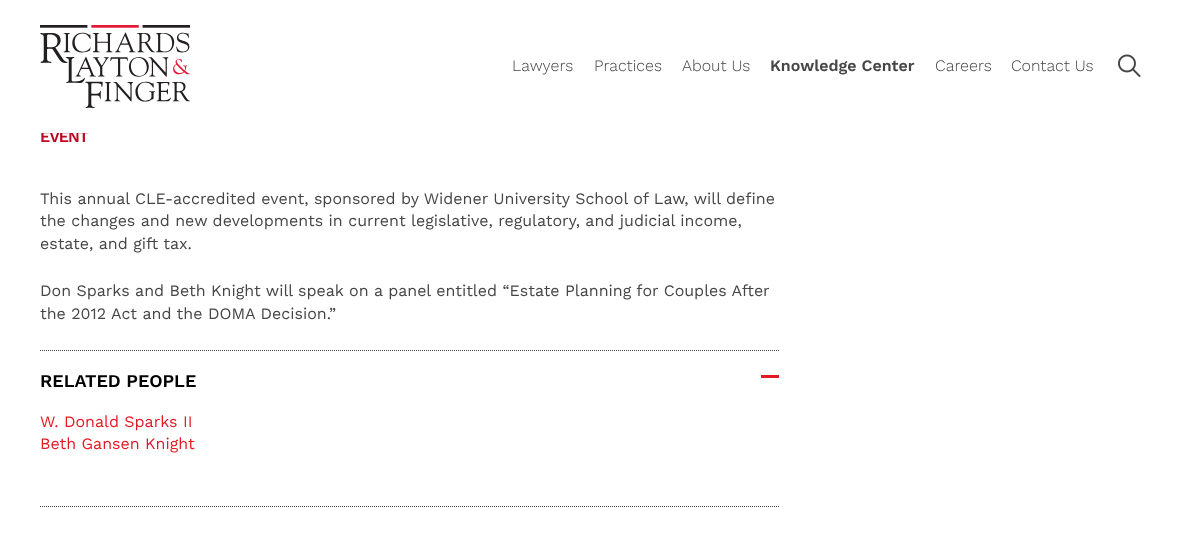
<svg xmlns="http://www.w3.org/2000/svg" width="1194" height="534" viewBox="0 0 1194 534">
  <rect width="100%" height="100%" fill="#ffffff"/>
  <text x="40" y="142" font-family="Work Sans" font-size="16" font-weight="600" letter-spacing="-1" fill="#bd0a24">EVENT</text>
  <rect x="41" y="131" width="48" height="2" fill="#ffffff"/>
  <image x="40" y="25" width="150" height="83" href="img1.png"/>
  <text x="512" y="71" font-family="Work Sans" font-size="16" font-weight="300" fill="#464646">Lawyers</text>
  <text x="594" y="71" font-family="Work Sans" font-size="16" font-weight="300" fill="#464646">Practices</text>
  <text x="682" y="71" font-family="Work Sans" font-size="16" font-weight="300" fill="#464646">About Us</text>
  <text x="770" y="71" font-family="Work Sans" font-size="16" font-weight="600" fill="#464646">Knowledge Center</text>
  <text x="935" y="71" font-family="Work Sans" font-size="16" font-weight="300" fill="#464646">Careers</text>
  <text x="1011" y="71" font-family="Work Sans" font-size="16" font-weight="300" fill="#464646">Contact Us</text>
  <image x="1118" y="54" width="23" height="23" href="img2.png"/>
  <text x="40" y="204" font-family="Work Sans" font-size="16" fill="#464646">This annual CLE-accredited event, sponsored by Widener University School of Law, will define</text>
  <text x="40" y="226" font-family="Work Sans" font-size="16" fill="#464646">the changes and new developments in current legislative, regulatory, and judicial income,</text>
  <text x="40" y="249" font-family="Work Sans" font-size="16" fill="#464646">estate, and gift tax.</text>
  <text x="40" y="296" font-family="Work Sans" font-size="16" fill="#464646">Don Sparks and Beth Knight will speak on a panel entitled “Estate Planning for Couples After</text>
  <text x="40" y="319" font-family="Work Sans" font-size="16" fill="#464646">the 2012 Act and the DOMA Decision.”</text>
  <path d="M40 506.5H779" fill="none" stroke="#464646" stroke-dasharray="1 1"/>
  <path d="M40 350.5H779" fill="none" stroke="#464646" stroke-dasharray="1 1"/>
  <text x="40" y="387" font-family="Work Sans" font-size="18" font-weight="600" fill="#000000">RELATED PEOPLE</text>
  <rect x="761" y="375" width="18" height="3" fill="#e31a23"/>
  <text x="40" y="427" font-family="Work Sans" font-size="16" fill="#e31a23">W. Donald Sparks II</text>
  <text x="40" y="449" font-family="Work Sans" font-size="16" fill="#e31a23">Beth Gansen Knight</text>
</svg>
